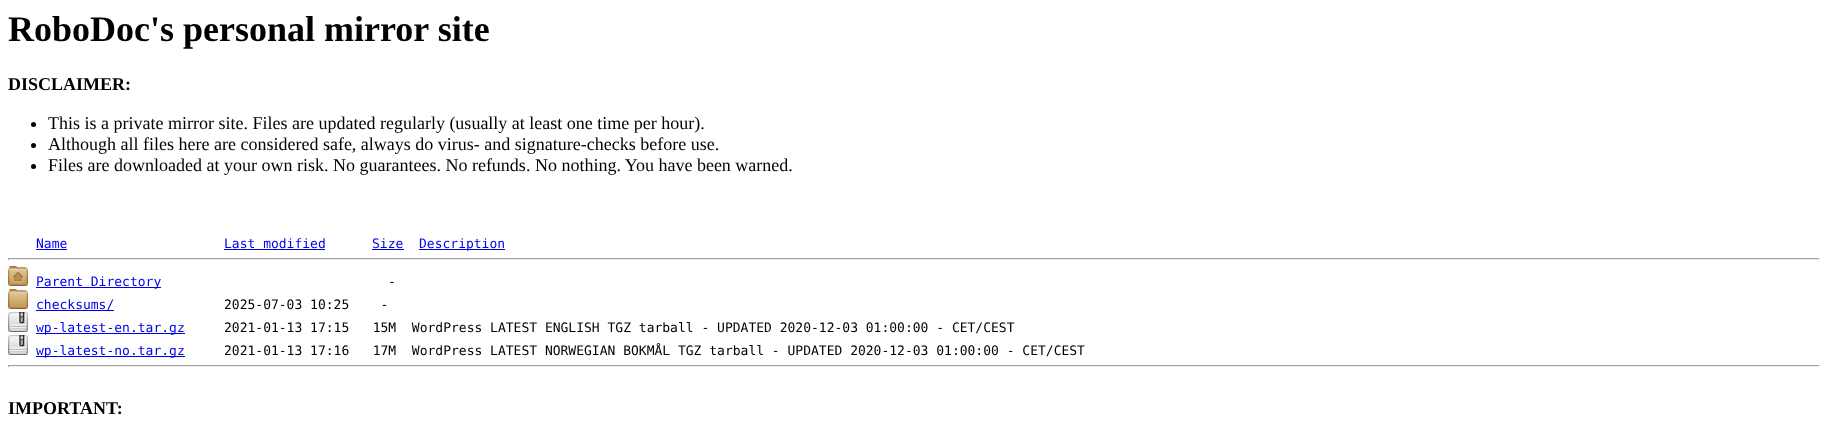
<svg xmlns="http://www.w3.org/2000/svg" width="1828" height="424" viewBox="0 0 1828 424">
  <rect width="100%" height="100%" fill="#ffffff"/>
  <text x="8" y="41" font-family="Liberation Serif" font-size="36" font-weight="bold" fill="#000000">RoboDoc's personal mirror site</text>
  <text x="8" y="90" font-family="Liberation Serif" font-size="18" font-weight="bold" fill="#000000">DISCLAIMER:</text>
  <circle cx="33.5" cy="124.5" r="2.5" fill="#000000"/>
  <text x="48" y="129" font-family="Liberation Serif" font-size="18" fill="#000000">This is a private mirror site. Files are updated regularly (usually at least one time per hour).</text>
  <circle cx="33.5" cy="145.5" r="2.5" fill="#000000"/>
  <text x="48" y="150" font-family="Liberation Serif" font-size="18" fill="#000000">Although all files here are considered safe, always do virus- and signature-checks before use.</text>
  <circle cx="33.5" cy="166.5" r="2.5" fill="#000000"/>
  <text x="48" y="171" font-family="Liberation Serif" font-size="18" fill="#000000">Files are downloaded at your own risk. No guarantees. No refunds. No nothing. You have been warned.</text>
  <text x="36" y="248" font-family="DejaVu Sans Mono" font-size="13" fill="#0000ee">Name</text>
  <rect x="36" y="249" width="31" height="1" fill="#0000ee"/>
  <text x="224" y="248" font-family="DejaVu Sans Mono" font-size="13" fill="#0000ee">Last modified</text>
  <rect x="224" y="249" width="101" height="1" fill="#0000ee"/>
  <text x="372" y="248" font-family="DejaVu Sans Mono" font-size="13" fill="#0000ee">Size</text>
  <rect x="372" y="249" width="32" height="1" fill="#0000ee"/>
  <rect x="419" y="249" width="86" height="1" fill="#0000ee"/>
  <text x="419" y="248" font-family="DejaVu Sans Mono" font-size="13" fill="#0000ee">Description</text>
  <rect x="8" y="258" width="1812" height="1" fill="#9f9f9f"/>
  <rect x="1819" y="258" width="1" height="2" fill="#eeeeee"/>
  <rect x="8" y="259" width="1812" height="1" fill="#eeeeee"/>
  <rect x="8" y="258" width="1" height="2" fill="#9f9f9f"/>
  <image x="8" y="266" width="20" height="20" href="img1.png"/>
  <rect x="36" y="287" width="125" height="1" fill="#0000ee"/>
  <text x="36" y="286" font-family="DejaVu Sans Mono" font-size="13" fill="#0000ee">Parent Directory</text>
  <text x="388" y="286" font-family="DejaVu Sans Mono" font-size="13" fill="#000000">-</text>
  <image x="8" y="289" width="20" height="20" href="img2.png"/>
  <rect x="36" y="310" width="78" height="1" fill="#0000ee"/>
  <text x="36" y="309" font-family="DejaVu Sans Mono" font-size="13" fill="#0000ee">checksums/</text>
  <text x="224" y="309" font-family="DejaVu Sans Mono" font-size="13" fill="#000000" xml:space="preserve">2025-07-03 10:25    -</text>
  <image x="8" y="312" width="20" height="20" href="img3.png"/>
  <rect x="36" y="333" width="149" height="1" fill="#0000ee"/>
  <text x="36" y="332" font-family="DejaVu Sans Mono" font-size="13" fill="#0000ee">wp-latest-en.tar.gz</text>
  <text x="224" y="332" font-family="DejaVu Sans Mono" font-size="13" fill="#000000" xml:space="preserve">2021-01-13 17:15   15M  WordPress LATEST ENGLISH TGZ tarball - UPDATED 2020-12-03 01:00:00 - CET/CEST</text>
  <image x="8" y="335" width="20" height="20" href="img3.png"/>
  <rect x="36" y="356" width="149" height="1" fill="#0000ee"/>
  <text x="36" y="355" font-family="DejaVu Sans Mono" font-size="13" fill="#0000ee">wp-latest-no.tar.gz</text>
  <text x="224" y="355" font-family="DejaVu Sans Mono" font-size="13" fill="#000000" xml:space="preserve">2021-01-13 17:16   17M  WordPress LATEST NORWEGIAN BOKMÅL TGZ tarball - UPDATED 2020-12-03 01:00:00 - CET/CEST</text>
  <rect x="8" y="365" width="1812" height="1" fill="#9f9f9f"/>
  <rect x="1819" y="365" width="1" height="2" fill="#eeeeee"/>
  <rect x="8" y="366" width="1812" height="1" fill="#eeeeee"/>
  <rect x="8" y="365" width="1" height="2" fill="#9f9f9f"/>
  <text x="8" y="414" font-family="Liberation Serif" font-size="18" font-weight="bold" fill="#000000">IMPORTANT:</text>
</svg>
